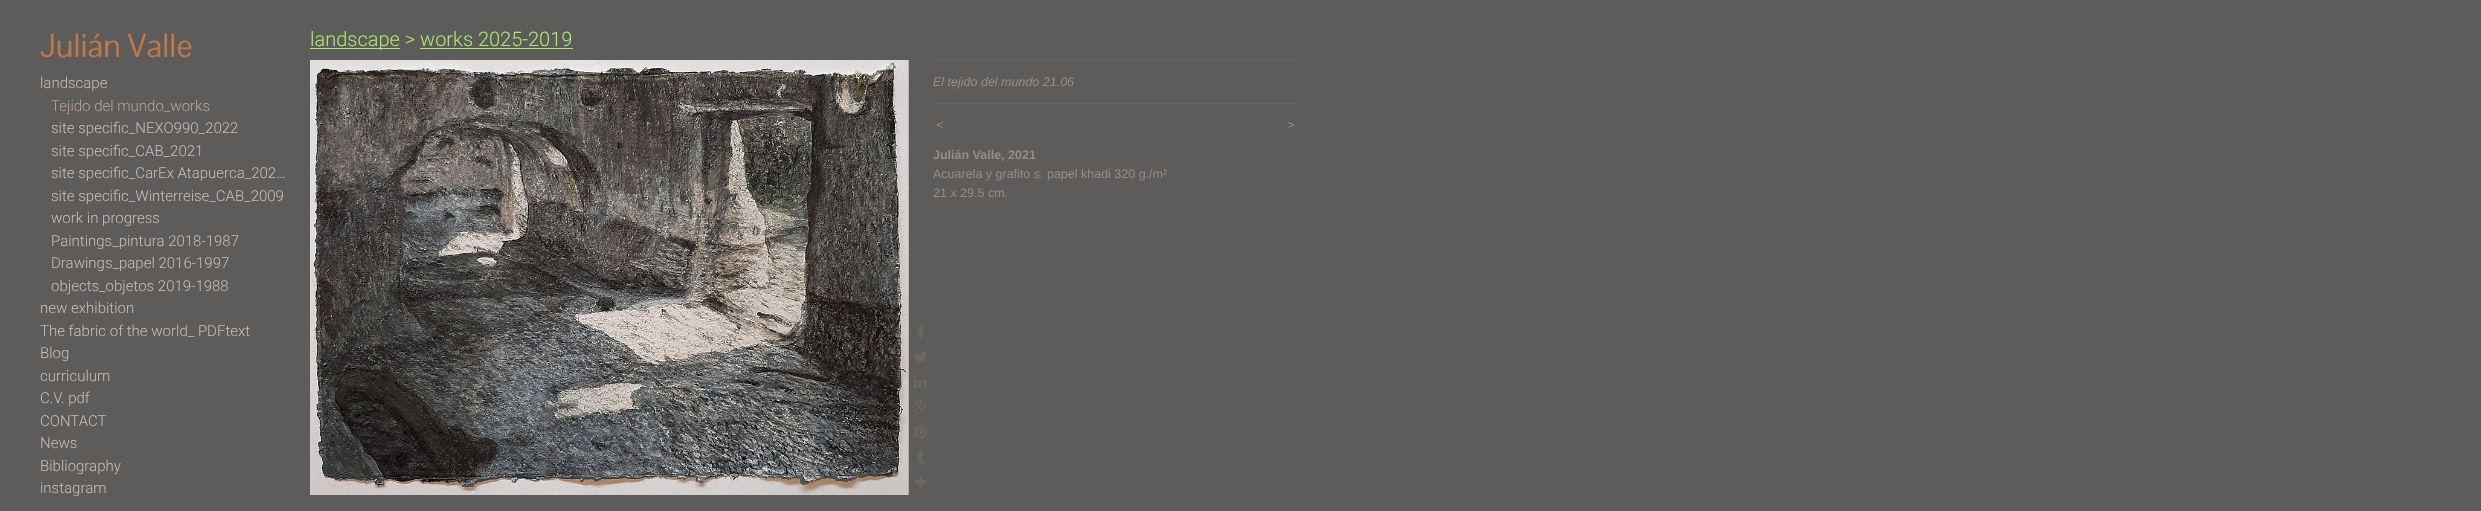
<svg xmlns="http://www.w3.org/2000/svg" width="2481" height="511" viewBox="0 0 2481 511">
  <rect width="100%" height="100%" fill="#5d5c5a"/>
  <text x="40" y="57" font-family="Pontano Sans" font-size="32.5" fill="#bc784e">Julián Valle</text>
  <text x="40" y="88" font-family="Roboto" font-size="15" font-weight="300" fill="#ccbfb7">landscape</text>
  <text x="51" y="111" font-family="Roboto" font-size="15" font-weight="300" fill="#b7a499">Tejido del mundo_works</text>
  <text x="51" y="133" font-family="Roboto" font-size="15" font-weight="300" fill="#ccbfb7">site specific_NEXO990_2022</text>
  <text x="51" y="156" font-family="Roboto" font-size="15" font-weight="300" fill="#ccbfb7">site specific_CAB_2021</text>
  <text x="51" y="178" font-family="Roboto" font-size="15" font-weight="300" fill="#ccbfb7">site specific_CarEx Atapuerca_202…</text>
  <text x="51" y="201" font-family="Roboto" font-size="15" font-weight="300" fill="#ccbfb7">site specific_Winterreise_CAB_2009</text>
  <text x="51" y="223" font-family="Roboto" font-size="15" font-weight="300" fill="#ccbfb7">work in progress</text>
  <text x="51" y="246" font-family="Roboto" font-size="15" font-weight="300" fill="#ccbfb7">Paintings_pintura 2018-1987</text>
  <text x="51" y="268" font-family="Roboto" font-size="15" font-weight="300" fill="#ccbfb7">Drawings_papel 2016-1997</text>
  <text x="51" y="291" font-family="Roboto" font-size="15" font-weight="300" fill="#ccbfb7">objects_objetos 2019-1988</text>
  <text x="40" y="313" font-family="Roboto" font-size="15" font-weight="300" fill="#ccbfb7">new exhibition</text>
  <text x="40" y="336" font-family="Roboto" font-size="15" font-weight="300" fill="#ccbfb7">The fabric of the world_ PDFtext</text>
  <text x="40" y="358" font-family="Roboto" font-size="15" font-weight="300" fill="#ccbfb7">Blog</text>
  <text x="40" y="381" font-family="Roboto" font-size="15" font-weight="300" fill="#ccbfb7">curriculum</text>
  <text x="40" y="403" font-family="Roboto" font-size="15" font-weight="300" fill="#ccbfb7">C.V. pdf</text>
  <text x="40" y="426" font-family="Roboto" font-size="15" font-weight="300" fill="#ccbfb7">CONTACT</text>
  <text x="40" y="448" font-family="Roboto" font-size="15" font-weight="300" fill="#ccbfb7">News</text>
  <text x="40" y="471" font-family="Roboto" font-size="15" font-weight="300" fill="#ccbfb7">Bibliography</text>
  <text x="40" y="493" font-family="Roboto" font-size="15" font-weight="300" fill="#ccbfb7">instagram</text>
  <rect x="310" y="48" width="90" height="1" fill="#abec6f"/>
  <text x="310" y="46" font-family="Roboto" font-size="20" font-weight="300" fill="#abec6f">landscape &gt; works 2025-2019</text>
  <rect x="420" y="48" width="153" height="1" fill="#abec6f"/>
  <image x="310" y="60" width="599" height="435" href="img1.png"/>
  <image x="917" y="324" width="8" height="15" href="img2.png"/>
  <image x="914" y="352" width="13" height="11" href="img3.png"/>
  <image x="914" y="376" width="13" height="12" href="img4.png"/>
  <image x="914" y="399" width="13" height="15" href="img5.png"/>
  <image x="914" y="426" width="13" height="13" href="img6.png"/>
  <image x="917" y="449" width="8" height="15" href="img7.png"/>
  <image x="915" y="475" width="12" height="13" href="img8.png"/>
  <rect x="934" y="60" width="362" height="1" fill="#696662"/>
  <text x="933" y="86" font-family="Liberation Sans" font-size="12.5" font-style="italic" fill="#9b8c82">El tejido del mundo 21.06</text>
  <rect x="934" y="103" width="362" height="1" fill="#696662"/>
  <text x="936" y="129" font-family="Liberation Sans" font-size="12.5" font-style="italic" letter-spacing="1" fill="#9b8c82">&lt;</text>
  <text x="1287" y="129" font-family="Liberation Sans" font-size="12.5" font-style="italic" letter-spacing="1" fill="#9b8c82">&gt;</text>
  <text x="933" y="159" font-family="Liberation Sans" font-size="12.5" font-weight="bold" fill="#9b8c82">Julián Valle, 2021</text>
  <text x="933" y="178" font-family="Liberation Sans" font-size="12.5" fill="#9b8c82">Acuarela y grafito s. papel khadi 320 g./m²</text>
  <text x="933" y="197" font-family="Liberation Sans" font-size="12.5" fill="#9b8c82">21 x 29.5 cm.</text>
</svg>
